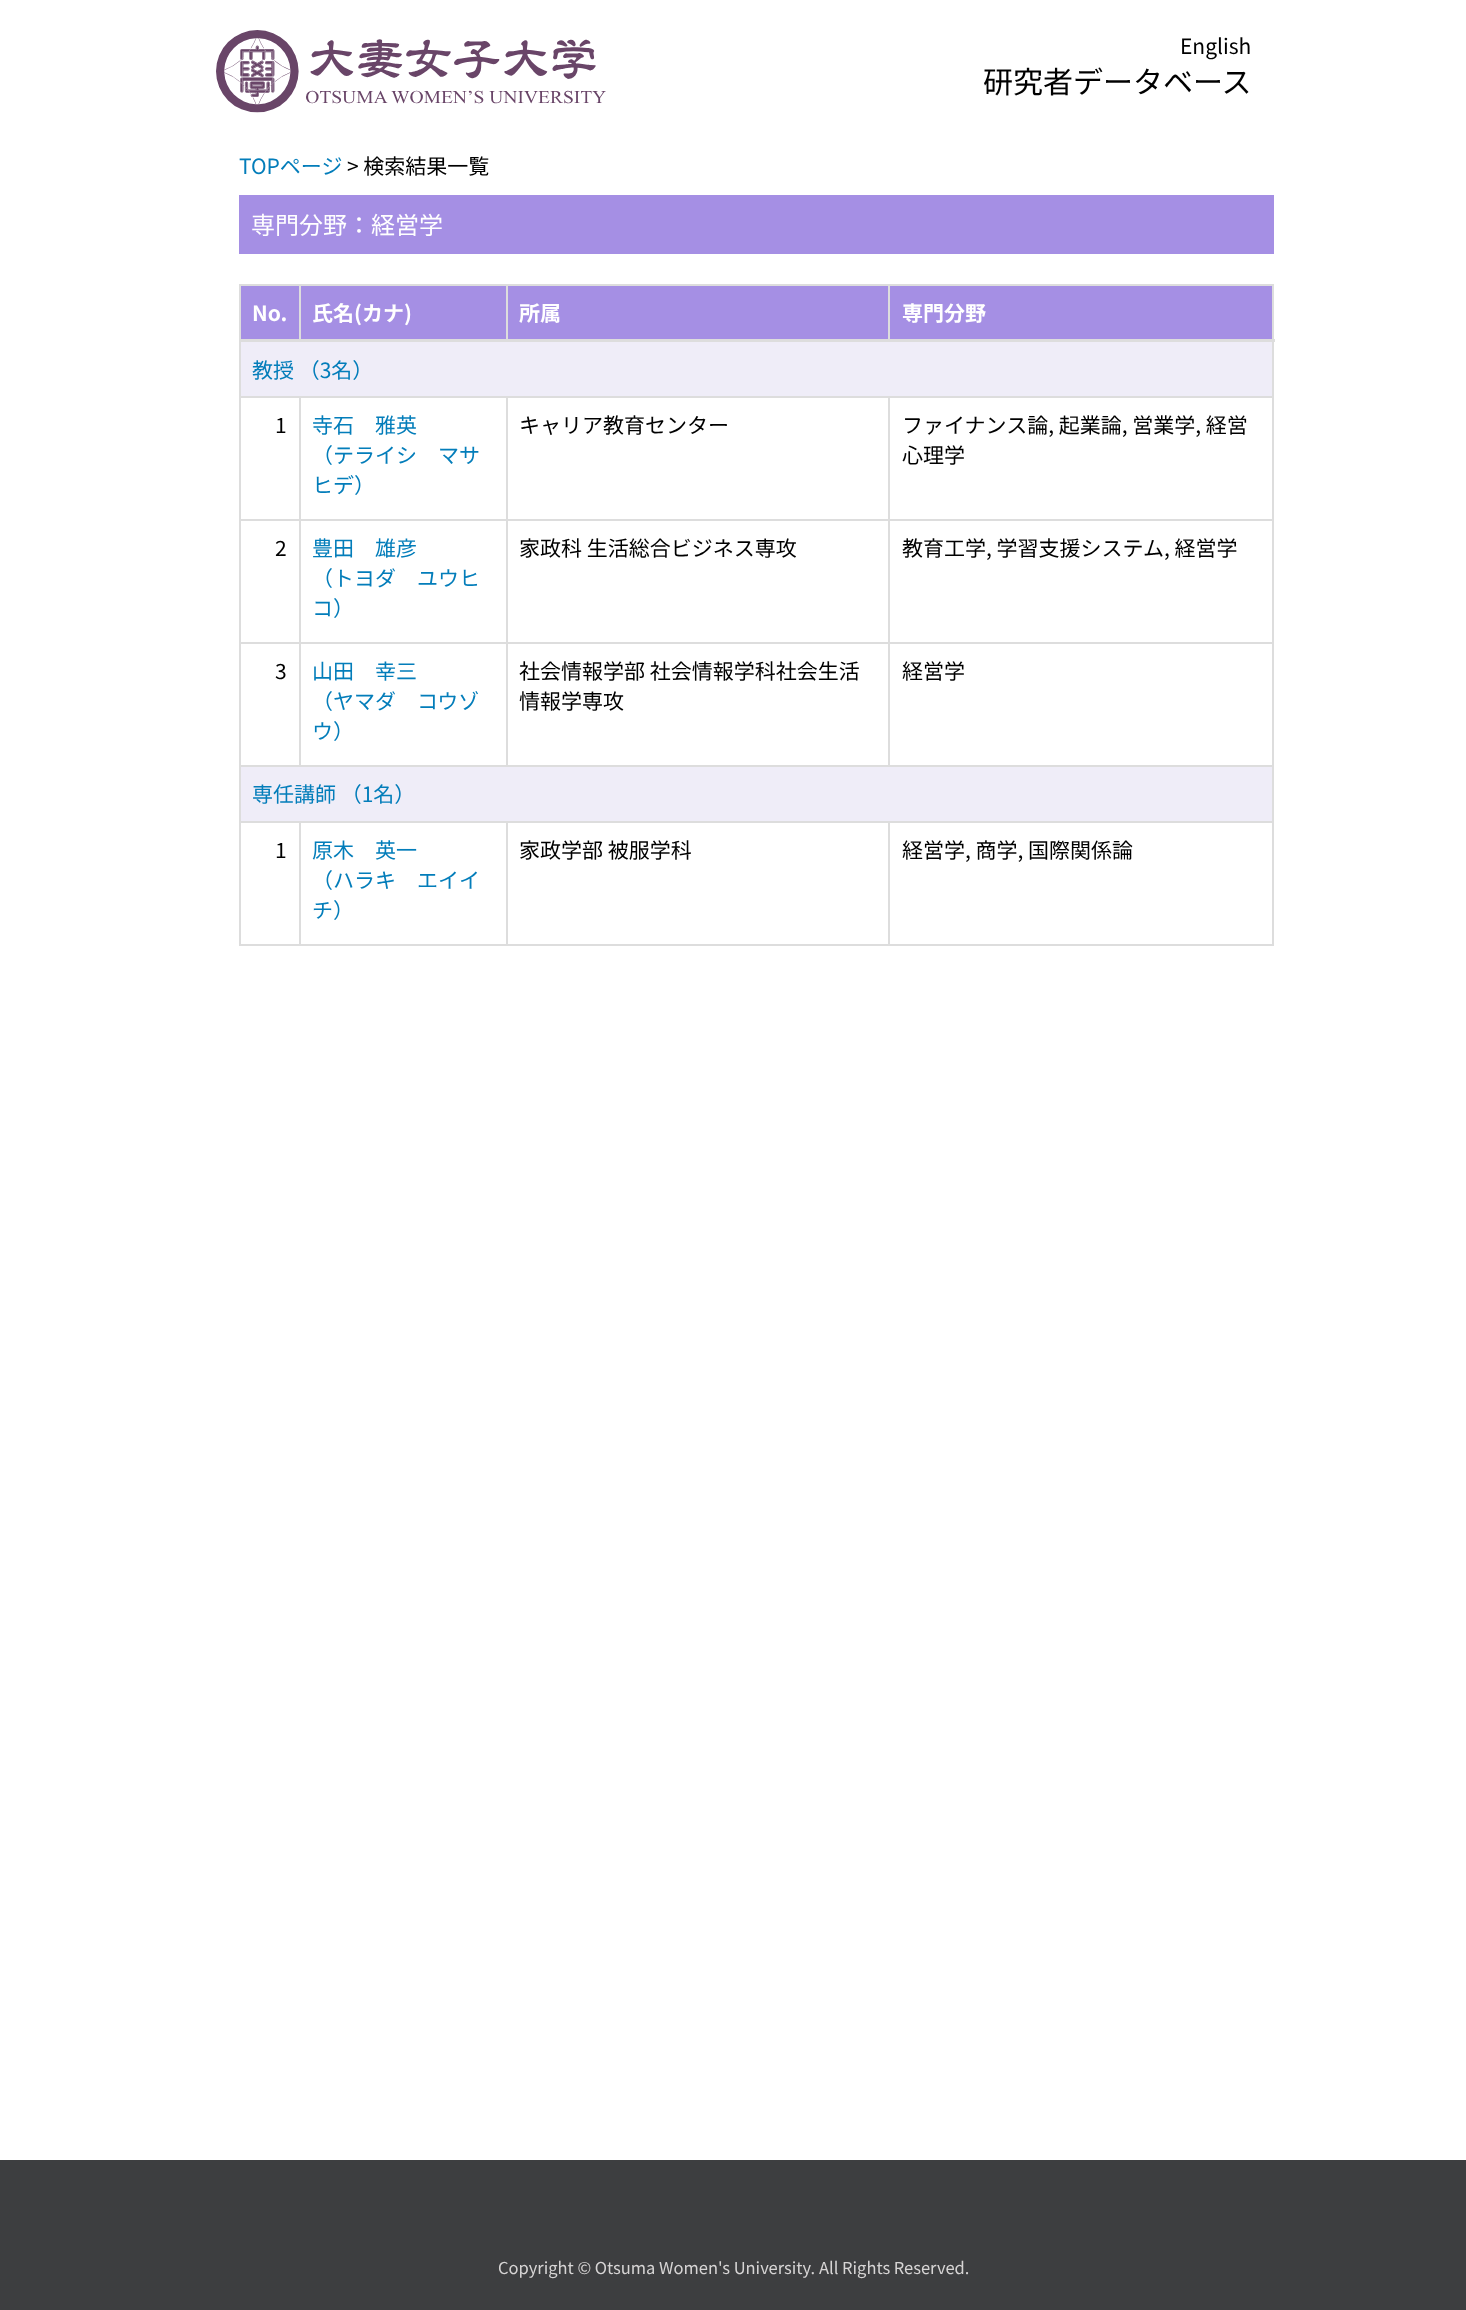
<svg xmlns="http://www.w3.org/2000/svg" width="1466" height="2310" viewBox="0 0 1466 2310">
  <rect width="100%" height="100%" fill="#ffffff"/>
  <image x="216" y="30" width="390" height="83" href="img1.png"/>
  <text x="1180" y="54" font-family="Noto Sans JP" font-size="21" fill="#000000">English</text>
  <text x="983" y="93" font-family="Noto Sans JP" font-size="30" fill="#000000">研究者データベース</text>
  <text x="239" y="174" font-family="Noto Sans JP" font-size="21" fill="#037dba">TOPページ</text>
  <text x="347" y="174" font-family="Noto Sans JP" font-size="21" fill="#000000">&gt; 検索結果一覧</text>
  <rect x="239" y="195" width="1035" height="59" fill="#a58fe4"/>
  <text x="251" y="234" font-family="Noto Sans JP" font-size="24" fill="#ffffff">専門分野：経営学</text>
  <rect x="239" y="284" width="1035" height="2" fill="#dddddd"/>
  <rect x="1272" y="284" width="2" height="661" fill="#dddddd"/>
  <rect x="239" y="944" width="1035" height="2" fill="#dddddd"/>
  <rect x="239" y="284" width="2" height="661" fill="#dddddd"/>
  <rect x="241" y="286" width="58" height="53" fill="#a58fe4"/>
  <text x="252" y="321" font-family="Noto Sans JP" font-size="21" font-weight="bold" fill="#ffffff">No.</text>
  <rect x="301" y="286" width="205" height="53" fill="#a58fe4"/>
  <rect x="299" y="284" width="2" height="57" fill="#dddddd"/>
  <text x="312" y="321" font-family="Noto Sans JP" font-size="21" font-weight="bold" fill="#ffffff">氏名(カナ)</text>
  <rect x="508" y="286" width="380" height="53" fill="#a58fe4"/>
  <rect x="506" y="284" width="2" height="57" fill="#dddddd"/>
  <text x="519" y="321" font-family="Noto Sans JP" font-size="21" font-weight="bold" fill="#ffffff">所属</text>
  <rect x="890" y="286" width="382" height="53" fill="#a58fe4"/>
  <rect x="888" y="284" width="2" height="57" fill="#dddddd"/>
  <rect x="239" y="339" width="1036" height="3" fill="#dddddd"/>
  <text x="902" y="321" font-family="Noto Sans JP" font-size="21" font-weight="bold" fill="#ffffff">専門分野</text>
  <rect x="241" y="342" width="1031" height="54" fill="#efedf8"/>
  <text x="252" y="378" font-family="Noto Sans JP" font-size="21" fill="#037dba">教授 （3名）</text>
  <rect x="888" y="396" width="386" height="2" fill="#dddddd"/>
  <rect x="888" y="519" width="386" height="2" fill="#dddddd"/>
  <rect x="888" y="642" width="386" height="2" fill="#dddddd"/>
  <rect x="239" y="765" width="1035" height="2" fill="#dddddd"/>
  <rect x="888" y="642" width="2" height="125" fill="#dddddd"/>
  <rect x="506" y="642" width="384" height="2" fill="#dddddd"/>
  <rect x="888" y="519" width="2" height="125" fill="#dddddd"/>
  <rect x="506" y="519" width="384" height="2" fill="#dddddd"/>
  <rect x="888" y="396" width="2" height="125" fill="#dddddd"/>
  <rect x="506" y="396" width="384" height="2" fill="#dddddd"/>
  <rect x="506" y="642" width="2" height="125" fill="#dddddd"/>
  <rect x="299" y="642" width="208" height="2" fill="#dddddd"/>
  <rect x="506" y="519" width="2" height="125" fill="#dddddd"/>
  <rect x="299" y="519" width="208" height="2" fill="#dddddd"/>
  <rect x="506" y="396" width="2" height="125" fill="#dddddd"/>
  <rect x="299" y="396" width="208" height="2" fill="#dddddd"/>
  <rect x="299" y="642" width="2" height="125" fill="#dddddd"/>
  <rect x="239" y="642" width="61" height="2" fill="#dddddd"/>
  <rect x="299" y="519" width="2" height="125" fill="#dddddd"/>
  <rect x="239" y="519" width="61" height="2" fill="#dddddd"/>
  <rect x="299" y="396" width="2" height="125" fill="#dddddd"/>
  <rect x="239" y="396" width="61" height="2" fill="#dddddd"/>
  <text x="275" y="433" font-family="Noto Sans JP" font-size="21" fill="#000000">1</text>
  <text x="312" y="433" font-family="Noto Sans JP" font-size="21" fill="#037dba">寺石　雅英</text>
  <text x="312" y="463" font-family="Noto Sans JP" font-size="21" fill="#037dba">（テライシ　マサ</text>
  <text x="312" y="493" font-family="Noto Sans JP" font-size="21" fill="#037dba">ヒデ）</text>
  <text x="519" y="433" font-family="Noto Sans JP" font-size="21" fill="#000000">キャリア教育センター</text>
  <text x="902" y="433" font-family="Noto Sans JP" font-size="21" fill="#000000">ファイナンス論, 起業論, 営業学, 経営</text>
  <text x="902" y="463" font-family="Noto Sans JP" font-size="21" fill="#000000">心理学</text>
  <text x="275" y="556" font-family="Noto Sans JP" font-size="21" fill="#000000">2</text>
  <text x="312" y="556" font-family="Noto Sans JP" font-size="21" fill="#037dba">豊田　雄彦</text>
  <text x="312" y="586" font-family="Noto Sans JP" font-size="21" fill="#037dba">（トヨダ　ユウヒ</text>
  <text x="312" y="616" font-family="Noto Sans JP" font-size="21" fill="#037dba">コ）</text>
  <text x="519" y="556" font-family="Noto Sans JP" font-size="21" fill="#000000">家政科 生活総合ビジネス専攻</text>
  <text x="902" y="556" font-family="Noto Sans JP" font-size="21" fill="#000000">教育工学, 学習支援システム, 経営学</text>
  <text x="275" y="679" font-family="Noto Sans JP" font-size="21" fill="#000000">3</text>
  <text x="312" y="679" font-family="Noto Sans JP" font-size="21" fill="#037dba">山田　幸三</text>
  <text x="312" y="709" font-family="Noto Sans JP" font-size="21" fill="#037dba">（ヤマダ　コウゾ</text>
  <text x="312" y="739" font-family="Noto Sans JP" font-size="21" fill="#037dba">ウ）</text>
  <text x="519" y="679" font-family="Noto Sans JP" font-size="21" fill="#000000">社会情報学部 社会情報学科社会生活</text>
  <text x="519" y="709" font-family="Noto Sans JP" font-size="21" fill="#000000">情報学専攻</text>
  <text x="902" y="679" font-family="Noto Sans JP" font-size="21" fill="#000000">経営学</text>
  <rect x="241" y="767" width="1031" height="54" fill="#efedf8"/>
  <text x="252" y="802" font-family="Noto Sans JP" font-size="21" fill="#037dba">専任講師 （1名）</text>
  <rect x="888" y="821" width="386" height="2" fill="#dddddd"/>
  <rect x="888" y="821" width="2" height="124" fill="#dddddd"/>
  <rect x="506" y="821" width="384" height="2" fill="#dddddd"/>
  <rect x="506" y="821" width="2" height="124" fill="#dddddd"/>
  <rect x="299" y="821" width="208" height="2" fill="#dddddd"/>
  <rect x="299" y="821" width="2" height="124" fill="#dddddd"/>
  <rect x="239" y="821" width="61" height="2" fill="#dddddd"/>
  <text x="275" y="858" font-family="Noto Sans JP" font-size="21" fill="#000000">1</text>
  <text x="312" y="858" font-family="Noto Sans JP" font-size="21" fill="#037dba">原木　英一</text>
  <text x="312" y="888" font-family="Noto Sans JP" font-size="21" fill="#037dba">（ハラキ　エイイ</text>
  <text x="312" y="918" font-family="Noto Sans JP" font-size="21" fill="#037dba">チ）</text>
  <text x="519" y="858" font-family="Noto Sans JP" font-size="21" fill="#000000">家政学部 被服学科</text>
  <text x="902" y="858" font-family="Noto Sans JP" font-size="21" fill="#000000">経営学, 商学, 国際関係論</text>
  <rect x="0" y="2160" width="1466" height="150" fill="#3d3e40"/>
  <text x="498" y="2274" font-family="Noto Sans JP" font-size="16.5" fill="#d7d5d5">Copyright © Otsuma Women's University.</text>
  <text x="819" y="2274" font-family="Noto Sans JP" font-size="16.5" fill="#d7d5d5">All Rights Reserved.</text>
</svg>
